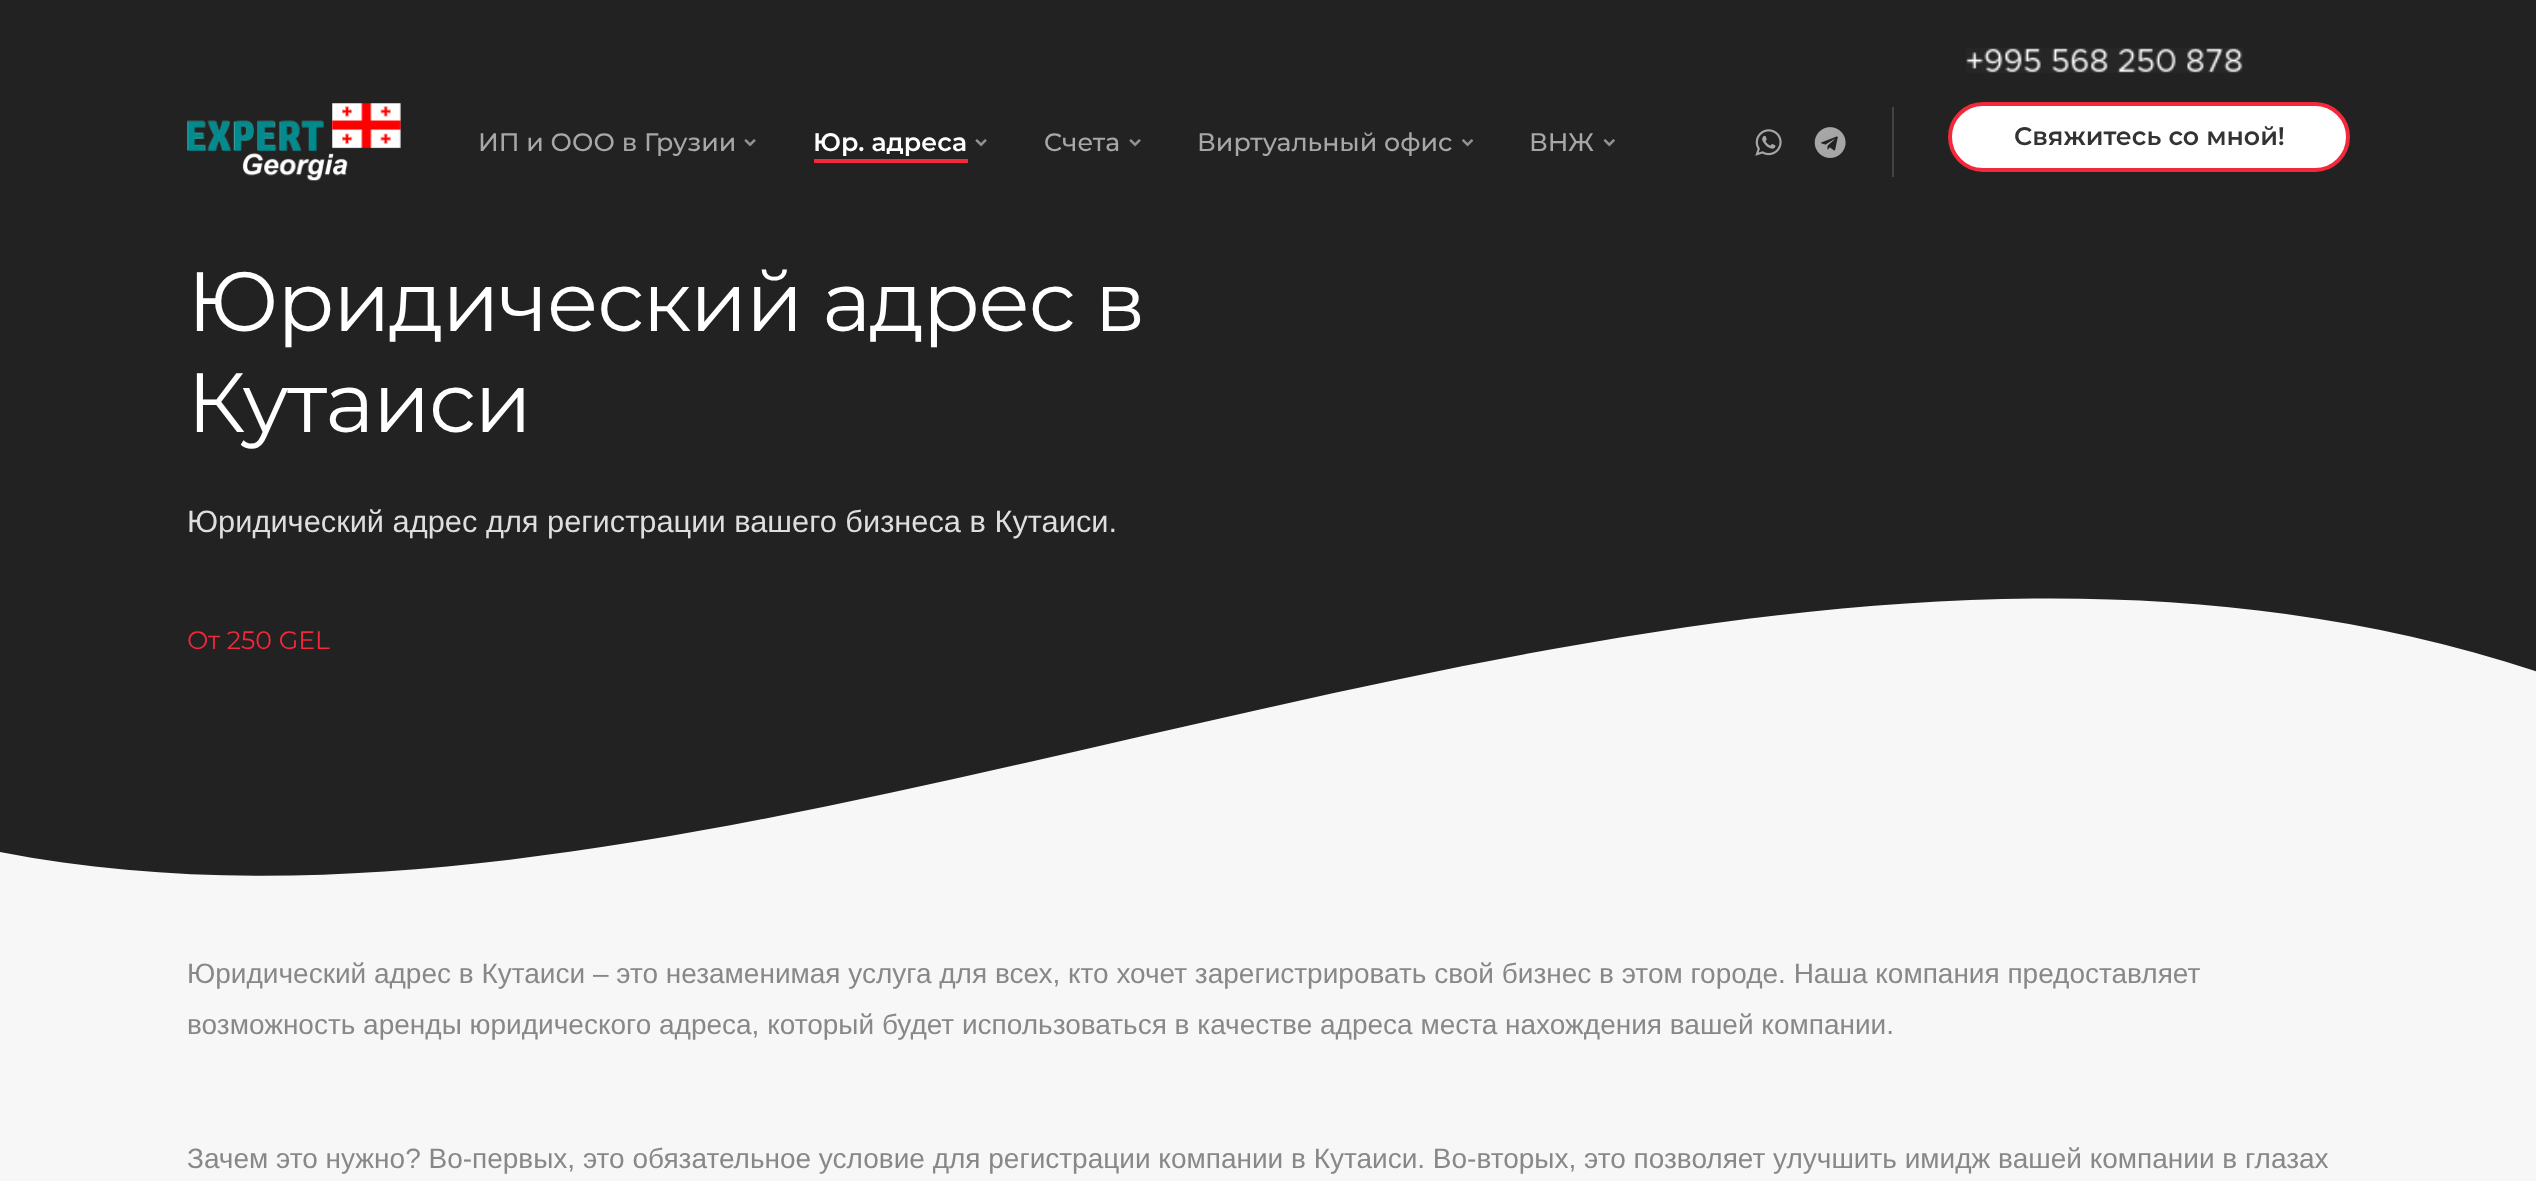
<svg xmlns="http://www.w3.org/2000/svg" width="2536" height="1181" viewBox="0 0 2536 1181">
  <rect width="100%" height="100%" fill="#222222"/>
  <image x="187" y="103" width="214" height="78" href="img1.png"/>
  <text x="478" y="151" font-family="Montserrat" font-size="25.25" font-weight="500" fill="#a7a7a7">ИП и ООО в Грузии</text>
  <image x="744" y="139" width="12" height="8" href="img2.png"/>
  <text x="813" y="151" font-family="Montserrat" font-size="25.25" font-weight="600" fill="#ffffff">Юр. адреса</text>
  <image x="975" y="139" width="12" height="8" href="img2.png"/>
  <rect x="814" y="159" width="154" height="4" fill="#f3283a"/>
  <text x="1044" y="151" font-family="Montserrat" font-size="25.25" font-weight="500" fill="#a7a7a7">Cчета</text>
  <image x="1129" y="139" width="12" height="8" href="img2.png"/>
  <text x="1197" y="151" font-family="Montserrat" font-size="25.25" font-weight="500" fill="#a7a7a7">Виртуальный офис</text>
  <image x="1462" y="139" width="12" height="8" href="img3.png"/>
  <text x="1529" y="151" font-family="Montserrat" font-size="25.25" font-weight="500" fill="#a7a7a7">ВНЖ</text>
  <image x="1603" y="139" width="12" height="8" href="img4.png"/>
  <image x="1755" y="129" width="27" height="27" href="img5.png"/>
  <image x="1814" y="127" width="32" height="31" href="img6.png"/>
  <rect x="1892" y="107" width="2" height="70" fill="#434343"/>
  <image x="1966" y="48" width="277" height="25" href="img7.png"/>
  <rect x="1950" y="104" width="398" height="66" rx="33" fill="#ffffff" stroke="#f3283a" stroke-width="4"/>
  <text x="2014" y="145" font-family="Montserrat" font-size="25.25" font-weight="600" fill="#333333">Свяжитесь со мной!</text>
  <text x="187" y="331" font-family="Montserrat" font-size="84" letter-spacing="-1.7" fill="#ffffff">Юридический адрес в</text>
  <text x="187" y="432" font-family="Montserrat" font-size="84" letter-spacing="-1.7" fill="#ffffff">Кутаиси</text>
  <text x="187" y="532" font-family="Liberation Sans" font-size="30.8" fill="#dedede">Юридический адрес для регистрации вашего бизнеса в Кутаиси.</text>
  <text x="187" y="649" font-family="Montserrat" font-size="25.25" fill="#f3283a">От 250 GEL</text>
  <path d="M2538 672C1703 395 761 1000 0 852V920H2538Z" fill="#f7f7f7"/>
  <rect x="0" y="920" width="2536" height="261" fill="#f7f7f7"/>
  <text x="187" y="983" font-family="Liberation Sans" font-size="28" fill="#888888">Юридический адрес в Кутаиси – это незаменимая услуга для всех, кто хочет зарегистрировать свой бизнес в этом городе. Наша компания предоставляет</text>
  <text x="187" y="1034" font-family="Liberation Sans" font-size="28" fill="#888888">возможность аренды юридического адреса, который будет использоваться в качестве адреса места нахождения вашей компании.</text>
  <text x="187" y="1168" font-family="Liberation Sans" font-size="28" fill="#888888">Зачем это нужно? Во-первых, это обязательное условие для регистрации компании в Кутаиси. Во-вторых, это позволяет улучшить имидж вашей компании в глазах</text>
</svg>
